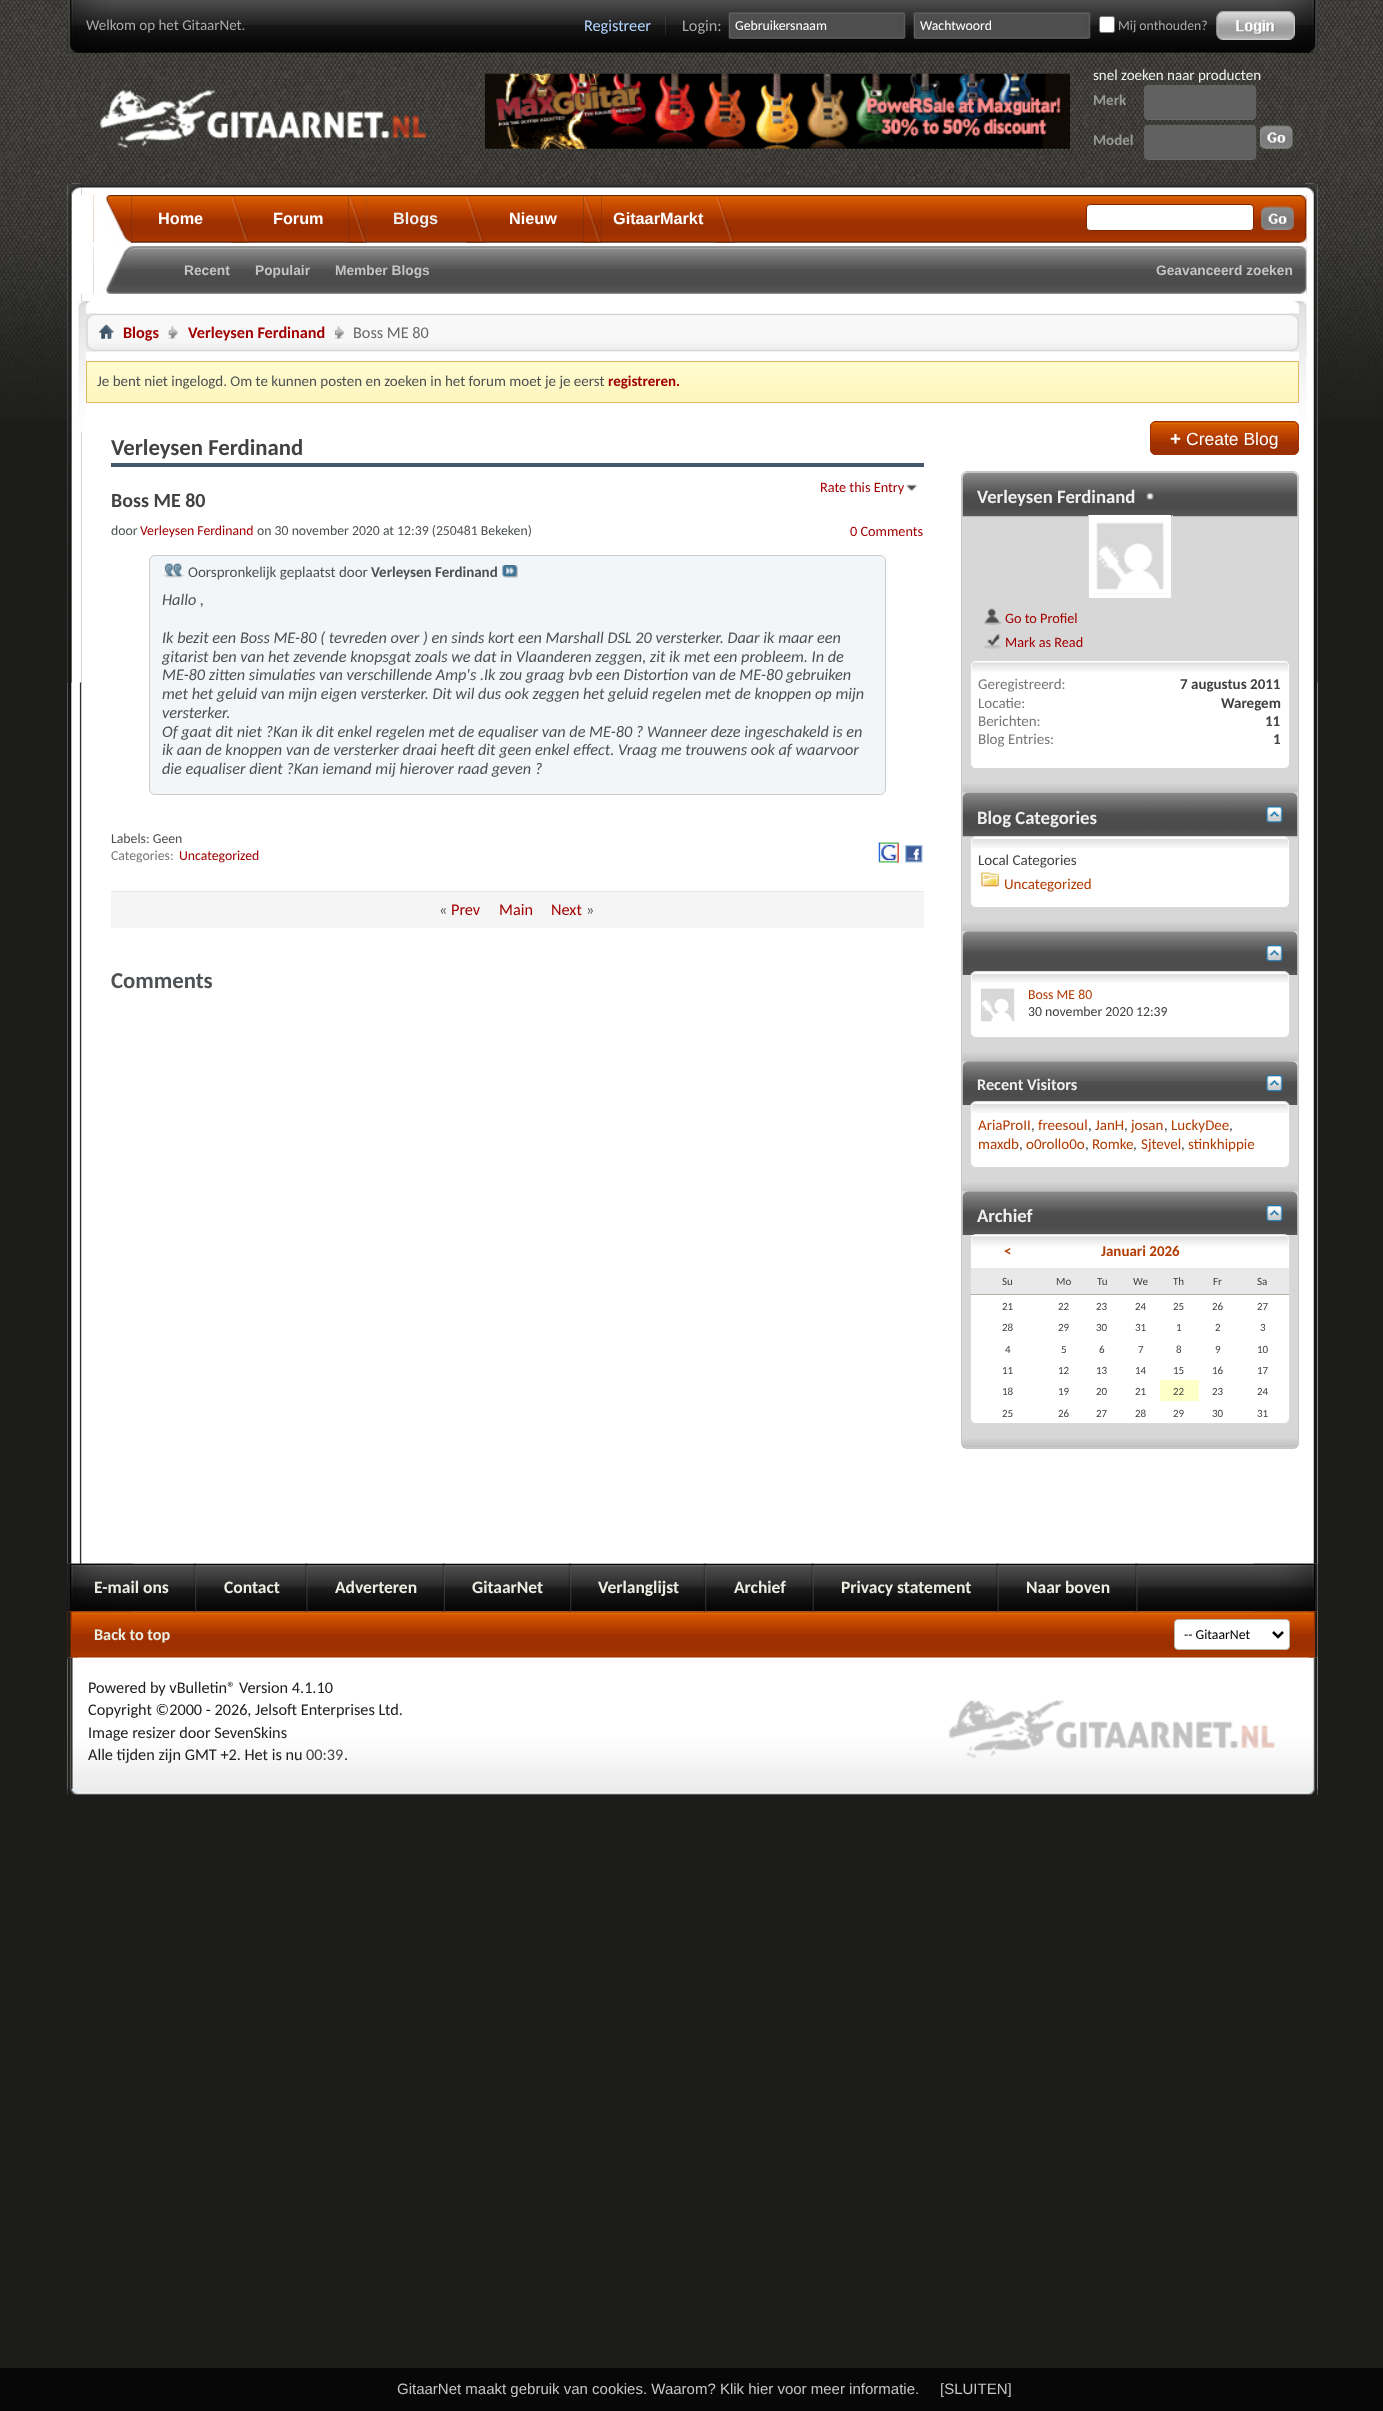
<svg xmlns="http://www.w3.org/2000/svg" width="1383" height="2411" viewBox="0 0 1383 2411">
  <defs>
    <clipPath id="clip1"><rect x="970" y="515" width="320" height="83"/></clipPath>
  </defs>
  <rect width="100%" height="100%" fill="#1c1d1b"/>
  <image x="0" y="0" width="1383" height="420" href="img1.png"/>
  <image x="67" y="0" width="1251" height="53" href="img2.png"/>
  <image x="67" y="0" width="43" height="53" href="img3.png"/>
  <image x="1276" y="0" width="42" height="53" href="img4.png"/>
  <text x="86" y="30" font-family="Carlito" font-size="15" fill="#a9a9a9">Welkom op het GitaarNet.</text>
  <text x="584" y="31" font-family="Carlito" font-size="16.25" fill="#b1d5ff">Registreer</text>
  <image x="665" y="16" width="3" height="19" href="img5.png"/>
  <text x="682" y="31" font-family="Carlito" font-size="16.25" fill="#a9a9a9">Login:</text>
  <image x="728" y="12" width="178" height="27" href="img6.png"/>
  <text x="735" y="30" font-family="Carlito" font-size="13.75" fill="#ffffff">Gebruikersnaam</text>
  <image x="913" y="12" width="178" height="27" href="img6.png"/>
  <text x="920" y="30" font-family="Carlito" font-size="13.75" fill="#ffffff">Wachtwoord</text>
  <rect x="1099.5" y="16.5" width="15" height="16" rx="2" fill="#ffffff" stroke="#767676"/>
  <text x="1118" y="30" font-family="Carlito" font-size="13.75" fill="#a9a9a9">Mij onthouden?</text>
  <image x="1216" y="11" width="79" height="29" href="img7.png"/>
  <image x="99" y="89" width="328" height="59" href="img8.png"/>
  <image x="485" y="73" width="585" height="76" href="img9.png"/>
  <text x="1093" y="80" font-family="Carlito" font-size="15" fill="#efefef">snel zoeken naar producten</text>
  <text x="1093" y="105" font-family="Carlito" font-size="15" font-weight="bold" fill="#999999">Merk</text>
  <rect x="1144" y="85" width="112" height="35" rx="4" fill="#616161"/>
  <image x="1148" y="89" width="109" height="31" href="img10.png"/>
  <text x="1093" y="145" font-family="Carlito" font-size="15" font-weight="bold" fill="#999999">Model</text>
  <rect x="1144" y="125" width="112" height="35" rx="4" fill="#616161"/>
  <image x="1148" y="129" width="109" height="31" href="img11.png"/>
  <image x="1260" y="125" width="33" height="24" href="img12.png"/>
  <rect x="68" y="184" width="1250" height="1611" fill="#ffffff"/>
  <image x="67" y="183" width="1251" height="14" href="img13.png"/>
  <image x="67" y="183" width="15" height="1381" href="img14.png"/>
  <image x="1305" y="183" width="13" height="1381" href="img15.png"/>
  <image x="67" y="183" width="15" height="500" href="img16.png"/>
  <image x="1305" y="183" width="13" height="500" href="img17.png"/>
  <rect x="81" y="195" width="1" height="99" fill="#ffffff"/>
  <image x="93" y="195" width="1214" height="99" href="img18.png"/>
  <image x="93" y="195" width="41" height="99" href="img19.png"/>
  <image x="1300" y="195" width="7" height="99" href="img20.png"/>
  <rect x="231" y="242" width="1069" height="1" fill="#2d2d2d"/>
  <image x="231" y="195" width="1069" height="48" href="img21.png"/>
  <image x="231" y="196" width="18" height="47" href="img22.png"/>
  <rect x="131" y="195" width="100" height="48" fill="#2d2d2d"/>
  <image x="131" y="195" width="101" height="48" href="img23.png"/>
  <text x="158" y="224" font-family="Liberation Sans" font-size="16.25" font-weight="bold" fill="#ffffff">Home</text>
  <image x="466" y="196" width="18" height="47" href="img22.png"/>
  <rect x="366" y="195" width="100" height="48" fill="#5a5a5a"/>
  <image x="366" y="195" width="101" height="48" href="img24.png"/>
  <text x="393" y="224" font-family="Liberation Sans" font-size="16.25" font-weight="bold" fill="#efefef">Blogs</text>
  <text x="184" y="275" font-family="Liberation Sans" font-size="13.75" font-weight="bold" fill="#c5c5c5">Recent</text>
  <text x="255" y="275" font-family="Liberation Sans" font-size="13.75" font-weight="bold" fill="#c5c5c5">Populair</text>
  <text x="335" y="275" font-family="Liberation Sans" font-size="13.75" font-weight="bold" fill="#c5c5c5">Member Blogs</text>
  <image x="349" y="196" width="17" height="47" href="img25.png"/>
  <rect x="249" y="195" width="100" height="48" fill="#2d2d2d"/>
  <image x="248" y="195" width="101" height="48" href="img26.png"/>
  <text x="273" y="224" font-family="Liberation Sans" font-size="16.25" font-weight="bold" fill="#ffffff">Forum</text>
  <image x="584" y="196" width="17" height="47" href="img25.png"/>
  <rect x="484" y="195" width="100" height="48" fill="#2d2d2d"/>
  <image x="483" y="195" width="101" height="48" href="img26.png"/>
  <text x="509" y="224" font-family="Liberation Sans" font-size="16.25" font-weight="bold" fill="#ffffff">Nieuw</text>
  <image x="716" y="196" width="18" height="47" href="img22.png"/>
  <rect x="601" y="195" width="115" height="48" fill="#2d2d2d"/>
  <image x="601" y="195" width="116" height="48" href="img27.png"/>
  <text x="613" y="224" font-family="Liberation Sans" font-size="16.25" font-weight="bold" fill="#ffffff">GitaarMarkt</text>
  <rect x="1086.5" y="204.5" width="167" height="26" rx="3.5" fill="#ffffff" stroke="#782500"/>
  <image x="1261" y="206" width="33" height="24" href="img28.png"/>
  <text x="1156" y="275" font-family="Liberation Sans" font-size="13.75" font-weight="bold" fill="#c5c5c5">Geavanceerd zoeken</text>
  <image x="78" y="301" width="1229" height="131" href="img29.png"/>
  <image x="78" y="301" width="10" height="131" href="img30.png"/>
  <image x="1299" y="301" width="8" height="56" href="img31.png"/>
  <rect x="86" y="301" width="1213" height="1240" rx="6" fill="#ffffff"/>
  <image x="86" y="313" width="1213" height="39" href="img32.png"/>
  <image x="86" y="313" width="10" height="39" href="img33.png"/>
  <image x="1290" y="313" width="9" height="39" href="img34.png"/>
  <image x="98" y="324" width="16" height="15" href="img35.png"/>
  <image x="168" y="326" width="10" height="13" href="img36.png"/>
  <text x="123" y="338" font-family="Carlito" font-size="16.25" font-weight="bold" fill="#a20000">Blogs</text>
  <image x="335" y="326" width="9" height="13" href="img37.png"/>
  <text x="188" y="338" font-family="Carlito" font-size="16.25" font-weight="bold" fill="#a20000">Verleysen Ferdinand</text>
  <text x="353" y="338" font-family="Carlito" font-size="16.25" fill="#6a6a6a">Boss ME 80</text>
  <rect x="87" y="362" width="1211" height="1" fill="#fff0ae"/>
  <image x="87" y="362" width="1211" height="40" href="img38.png"/>
  <rect x="86.5" y="361.5" width="1212" height="41" fill="none" stroke="#e6b868"/>
  <text x="97" y="386" font-family="Carlito" font-size="15" fill="#4d5153">Je bent niet ingelogd. Om te kunnen posten en zoeken in het forum moet je je eerst</text>
  <text x="608" y="386" font-family="Carlito" font-size="15" font-weight="bold" fill="#a20000">registreren.</text>
  <rect x="111" y="463" width="813" height="4" fill="#425769"/>
  <text x="111" y="455" font-family="Carlito" font-size="22.75" font-weight="bold" fill="#424242">Verleysen Ferdinand</text>
  <text x="820" y="492" font-family="Carlito" font-size="14.25" fill="#a20000">Rate this Entry</text>
  <image x="906" y="484" width="12" height="7" href="img39.png"/>
  <text x="111" y="507" font-family="Carlito" font-size="20" font-weight="bold" fill="#424242">Boss ME 80</text>
  <text x="111" y="535" font-family="Carlito" font-size="13.75" fill="#4d5153">door</text>
  <text x="140" y="535" font-family="Carlito" font-size="13.75" fill="#a20000">Verleysen Ferdinand</text>
  <text x="257" y="535" font-family="Carlito" font-size="13.75" fill="#4d5153">on 30 november 2020 at 12:39 (250481 Bekeken)</text>
  <text x="850" y="536" font-family="Carlito" font-size="14.25" fill="#a20000">0 Comments</text>
  <rect x="149.5" y="555.5" width="736" height="239" rx="5.5" fill="#f2f6f8" stroke="#cccccc"/>
  <image x="163" y="563" width="22" height="15" href="img40.png"/>
  <text x="188" y="577" font-family="Carlito" font-size="15" fill="#4d5153">Oorspronkelijk geplaatst door</text>
  <text x="371" y="577" font-family="Carlito" font-size="15" font-weight="bold" fill="#4d5153">Verleysen Ferdinand</text>
  <image x="502" y="565" width="16" height="13" href="img41.png"/>
  <text x="162" y="605" font-family="Carlito" font-size="16.25" font-style="italic" fill="#4d5153">Hallo ,</text>
  <text x="162" y="643" font-family="Carlito" font-size="16.25" font-style="italic" fill="#4d5153">Ik bezit een Boss ME-80 ( tevreden over ) en sinds kort een Marshall DSL 20 versterker. Daar ik maar een</text>
  <text x="162" y="662" font-family="Carlito" font-size="16.25" font-style="italic" fill="#4d5153">gitarist ben van het zevende knopsgat zoals we dat in Vlaanderen zeggen, zit ik met een probleem. In de</text>
  <text x="162" y="680" font-family="Carlito" font-size="16.25" font-style="italic" fill="#4d5153">ME-80 zitten simulaties van verschillende Amp's .Ik zou graag bvb een Distortion van de ME-80 gebruiken</text>
  <text x="162" y="699" font-family="Carlito" font-size="16.25" font-style="italic" fill="#4d5153">met het geluid van mijn eigen versterker. Dit wil dus ook zeggen het geluid regelen met de knoppen op mijn</text>
  <text x="162" y="718" font-family="Carlito" font-size="16.25" font-style="italic" fill="#4d5153">versterker.</text>
  <text x="162" y="737" font-family="Carlito" font-size="16.25" font-style="italic" fill="#4d5153">Of gaat dit niet ?Kan ik dit enkel regelen met de equaliser van de ME-80 ? Wanneer deze ingeschakeld is en</text>
  <text x="162" y="755" font-family="Carlito" font-size="16.25" font-style="italic" fill="#4d5153">ik aan de knoppen van de versterker draai heeft dit geen enkel effect. Vraag me trouwens ook af waarvoor</text>
  <text x="162" y="774" font-family="Carlito" font-size="16.25" font-style="italic" fill="#4d5153">die equaliser dient ?Kan iemand mij hierover raad geven ?</text>
  <text x="111" y="843" font-family="Carlito" font-size="13.75" fill="#4d5153">Labels: Geen</text>
  <text x="111" y="860" font-family="Carlito" font-size="13.75" fill="#777777">Categories:</text>
  <text x="179" y="860" font-family="Carlito" font-size="13.75" fill="#a20000">Uncategorized</text>
  <image x="878" y="842" width="21" height="21" href="img42.png"/>
  <image x="905" y="845" width="18" height="18" href="img43.png"/>
  <rect x="111" y="892" width="813" height="36" fill="#f5f5f5"/>
  <rect x="111" y="891" width="813" height="1" fill="#e7e7e7"/>
  <text x="439" y="915" font-family="Carlito" font-size="16.25" fill="#5d5d5d">«</text>
  <text x="451" y="915" font-family="Carlito" font-size="16.25" fill="#a20000">Prev</text>
  <text x="499" y="915" font-family="Carlito" font-size="16.25" fill="#a20000">Main</text>
  <text x="551" y="915" font-family="Carlito" font-size="16.25" fill="#a20000">Next</text>
  <text x="586" y="915" font-family="Carlito" font-size="16.25" fill="#5d5d5d">»</text>
  <text x="111" y="988" font-family="Carlito" font-size="22.75" font-weight="bold" fill="#4d5153">Comments</text>
  <rect x="1150" y="421" width="149" height="34" rx="6" fill="#ac3800"/>
  <image x="1150" y="422" width="149" height="33" href="img44.png"/>
  <rect x="1150.5" y="421.5" width="148" height="33" rx="5.5" fill="none" stroke="#9f3100"/>
  <text x="1170" y="445" font-family="Liberation Sans" font-size="18.75" font-weight="bold" fill="#ffffff">+</text>
  <text x="1186" y="445" font-family="Liberation Sans" font-size="17.5" fill="#ffffff">Create Blog</text>
  <rect x="961.5" y="471.5" width="337" height="977" rx="5.5" fill="#d7d7d7" stroke="#c6c6c5"/>
  <image x="962" y="472" width="336" height="45" href="img45.png"/>
  <text x="977" y="503" font-family="Carlito" font-size="18.75" font-weight="bold" fill="#efefef">Verleysen Ferdinand</text>
  <image x="1146" y="492" width="8" height="9" href="img46.png"/>
  <rect x="1091" y="517" width="78" height="79" fill="none" stroke="#ffffff" stroke-width="4"/>
  <image x="1093" y="519" width="74" height="75" href="img47.png"/>
  <g clip-path="url(#clip1)">
    <rect x="1088.5" y="514.5" width="84" height="84" fill="none" stroke="#dadada"/>
  </g>
  <image x="983" y="608" width="19" height="17" href="img48.png"/>
  <text x="1005" y="623" font-family="Carlito" font-size="14.25" fill="#a20000">Go to Profiel</text>
  <image x="984" y="633" width="18" height="16" href="img49.png"/>
  <text x="1005" y="647" font-family="Carlito" font-size="14.25" fill="#a20000">Mark as Read</text>
  <rect x="970.5" y="660.5" width="319" height="108" rx="5.5" fill="#ffffff" stroke="#dadada"/>
  <rect x="971" y="661" width="318" height="107" rx="6" fill="#ffffff"/>
  <image x="971" y="662" width="318" height="10" href="img50.png"/>
  <rect x="1285" y="661" width="1" height="1" fill="#ffffff"/>
  <text x="978" y="689" font-family="Carlito" font-size="15" fill="#777777">Geregistreerd:</text>
  <text x="1180" y="689" font-family="Carlito" font-size="15" font-weight="bold" fill="#424242">7 augustus 2011</text>
  <text x="978" y="708" font-family="Carlito" font-size="15" fill="#777777">Locatie:</text>
  <text x="1221" y="708" font-family="Carlito" font-size="15" font-weight="bold" fill="#424242">Waregem</text>
  <text x="978" y="726" font-family="Carlito" font-size="15" fill="#777777">Berichten:</text>
  <text x="1265" y="726" font-family="Carlito" font-size="15" font-weight="bold" fill="#424242">11</text>
  <text x="978" y="744" font-family="Carlito" font-size="15" fill="#777777">Blog Entries:</text>
  <text x="1273" y="744" font-family="Carlito" font-size="15" font-weight="bold" fill="#424242">1</text>
  <image x="962" y="784" width="336" height="9" href="img51.png"/>
  <image x="962" y="792" width="336" height="45" href="img52.png"/>
  <text x="977" y="824" font-family="Carlito" font-size="18.75" font-weight="bold" fill="#efefef">Blog Categories</text>
  <image x="1266" y="806" width="17" height="17" href="img53.png"/>
  <rect x="970.5" y="836.5" width="319" height="71" rx="5.5" fill="#ffffff" stroke="#dadada"/>
  <image x="971" y="839" width="318" height="9" href="img54.png"/>
  <text x="978" y="865" font-family="Carlito" font-size="15" fill="#424242">Local Categories</text>
  <image x="981" y="872" width="18" height="15" href="img55.png"/>
  <text x="1004" y="889" font-family="Carlito" font-size="15" fill="#b13b00">Uncategorized</text>
  <image x="962" y="923" width="336" height="9" href="img56.png"/>
  <path d="M969 931H1292C1295.5 931 1298 933.5 1298 937V1045H963V937C963 933.5 965.5 931 969 931Z" fill="#d7d7d7"/>
  <image x="962" y="931" width="336" height="44" href="img57.png"/>
  <image x="1266" y="945" width="17" height="17" href="img58.png"/>
  <rect x="970.5" y="971.5" width="319" height="66" rx="5.5" fill="#ffffff" stroke="#dadada"/>
  <image x="971" y="974" width="318" height="9" href="img54.png"/>
  <image x="981" y="988" width="34" height="34" href="img59.png"/>
  <text x="1028" y="999" font-family="Carlito" font-size="13.75" fill="#b13b00">Boss ME 80</text>
  <text x="1028" y="1016" font-family="Carlito" font-size="13.75" fill="#424242">30 november 2020</text>
  <text x="1136" y="1016" font-family="Carlito" font-size="13.75" fill="#424242">12:39</text>
  <image x="962" y="1053" width="336" height="9" href="img56.png"/>
  <path d="M969 1061H1292C1295.5 1061 1298 1063.5 1298 1067V1175H963V1067C963 1063.5 965.5 1061 969 1061Z" fill="#d7d7d7"/>
  <image x="962" y="1061" width="336" height="44" href="img60.png"/>
  <text x="977" y="1090" font-family="Carlito" font-size="16.25" font-weight="bold" fill="#efefef">Recent Visitors</text>
  <image x="1266" y="1075" width="17" height="17" href="img58.png"/>
  <rect x="970.5" y="1101.5" width="319" height="66" rx="5.5" fill="#ffffff" stroke="#dadada"/>
  <image x="971" y="1104" width="318" height="9" href="img54.png"/>
  <text x="978" y="1130" font-family="Carlito" font-size="15" fill="#b13b00">AriaProII</text>
  <text x="1031" y="1130" font-family="Carlito" font-size="15" fill="#424242">,</text>
  <text x="1038" y="1130" font-family="Carlito" font-size="15" fill="#b13b00">freesoul</text>
  <text x="1088" y="1130" font-family="Carlito" font-size="15" fill="#424242">,</text>
  <text x="1095" y="1130" font-family="Carlito" font-size="15" fill="#b13b00">JanH</text>
  <text x="1124" y="1130" font-family="Carlito" font-size="15" fill="#424242">,</text>
  <text x="1131" y="1130" font-family="Carlito" font-size="15" fill="#b13b00">josan</text>
  <text x="1164" y="1130" font-family="Carlito" font-size="15" fill="#424242">,</text>
  <text x="1171" y="1130" font-family="Carlito" font-size="15" fill="#b13b00">LuckyDee</text>
  <text x="1229" y="1130" font-family="Carlito" font-size="15" fill="#424242">,</text>
  <text x="978" y="1149" font-family="Carlito" font-size="15" fill="#b13b00">maxdb</text>
  <text x="1019" y="1149" font-family="Carlito" font-size="15" fill="#424242">,</text>
  <text x="1026" y="1149" font-family="Carlito" font-size="15" fill="#b13b00">o0rollo0o</text>
  <text x="1085" y="1149" font-family="Carlito" font-size="15" fill="#424242">,</text>
  <text x="1092" y="1149" font-family="Carlito" font-size="15" fill="#b13b00">Romke</text>
  <text x="1133" y="1149" font-family="Carlito" font-size="15" fill="#424242">,</text>
  <text x="1141" y="1149" font-family="Carlito" font-size="15" fill="#b13b00">Sjtevel</text>
  <text x="1181" y="1149" font-family="Carlito" font-size="15" fill="#424242">,</text>
  <text x="1188" y="1149" font-family="Carlito" font-size="15" fill="#b13b00">stinkhippie</text>
  <image x="962" y="1183" width="336" height="9" href="img56.png"/>
  <path d="M969 1191H1292C1295.5 1191 1298 1193.5 1298 1197V1431H963V1197C963 1193.5 965.5 1191 969 1191Z" fill="#d7d7d7"/>
  <image x="962" y="1191" width="336" height="44" href="img61.png"/>
  <text x="977" y="1222" font-family="Carlito" font-size="18.75" font-weight="bold" fill="#efefef">Archief</text>
  <image x="1266" y="1205" width="17" height="17" href="img58.png"/>
  <rect x="970.5" y="1234.5" width="319" height="189" rx="5.5" fill="#ffffff" stroke="#dadada"/>
  <rect x="971" y="1235" width="318" height="188" rx="6" fill="#ffffff"/>
  <image x="971" y="1236" width="318" height="59" href="img62.png"/>
  <rect x="971" y="1235" width="318" height="1" fill="#ffffff"/>
  <text x="1004" y="1256" font-family="Carlito" font-size="15" font-weight="bold" fill="#b13b00">&lt;</text>
  <text x="1101" y="1256" font-family="Carlito" font-size="15" font-weight="bold" fill="#b13b00">Januari 2026</text>
  <rect x="971" y="1268" width="318" height="26" fill="#e9e9e9"/>
  <rect x="970" y="1294" width="75" height="1" fill="#b3b3a7"/>
  <text x="1002" y="1285" font-family="Carlito" font-size="11" fill="#424242">Su</text>
  <rect x="1082" y="1294" width="2" height="1" fill="#b3b3a7"/>
  <text x="1056" y="1285" font-family="Carlito" font-size="11" fill="#424242">Mo</text>
  <text x="1097" y="1285" font-family="Carlito" font-size="11" fill="#424242">Tu</text>
  <rect x="1120" y="1294" width="2" height="1" fill="#b3b3a7"/>
  <text x="1133" y="1285" font-family="Carlito" font-size="11" fill="#424242">We</text>
  <text x="1173" y="1285" font-family="Carlito" font-size="11" fill="#424242">Th</text>
  <rect x="1198" y="1294" width="1" height="1" fill="#b3b3a7"/>
  <text x="1213" y="1285" font-family="Carlito" font-size="11" fill="#424242">Fr</text>
  <rect x="1236" y="1294" width="53" height="1" fill="#b3b3a7"/>
  <text x="1257" y="1285" font-family="Carlito" font-size="11" fill="#424242">Sa</text>
  <text x="1002" y="1310" font-family="Carlito" font-size="11" fill="#424242">21</text>
  <text x="1058" y="1310" font-family="Carlito" font-size="11" fill="#424242">22</text>
  <text x="1096" y="1310" font-family="Carlito" font-size="11" fill="#424242">23</text>
  <text x="1135" y="1310" font-family="Carlito" font-size="11" fill="#424242">24</text>
  <text x="1173" y="1310" font-family="Carlito" font-size="11" fill="#424242">25</text>
  <text x="1212" y="1310" font-family="Carlito" font-size="11" fill="#424242">26</text>
  <text x="1257" y="1310" font-family="Carlito" font-size="11" fill="#424242">27</text>
  <text x="1002" y="1331" font-family="Carlito" font-size="11" fill="#424242">28</text>
  <text x="1058" y="1331" font-family="Carlito" font-size="11" fill="#424242">29</text>
  <text x="1096" y="1331" font-family="Carlito" font-size="11" fill="#424242">30</text>
  <text x="1135" y="1331" font-family="Carlito" font-size="11" fill="#424242">31</text>
  <text x="1176" y="1331" font-family="Carlito" font-size="11" fill="#424242">1</text>
  <text x="1215" y="1331" font-family="Carlito" font-size="11" fill="#424242">2</text>
  <text x="1260" y="1331" font-family="Carlito" font-size="11" fill="#424242">3</text>
  <text x="1005" y="1353" font-family="Carlito" font-size="11" fill="#424242">4</text>
  <text x="1061" y="1353" font-family="Carlito" font-size="11" fill="#424242">5</text>
  <text x="1099" y="1353" font-family="Carlito" font-size="11" fill="#424242">6</text>
  <text x="1138" y="1353" font-family="Carlito" font-size="11" fill="#424242">7</text>
  <text x="1176" y="1353" font-family="Carlito" font-size="11" fill="#424242">8</text>
  <text x="1215" y="1353" font-family="Carlito" font-size="11" fill="#424242">9</text>
  <text x="1257" y="1353" font-family="Carlito" font-size="11" fill="#424242">10</text>
  <text x="1002" y="1374" font-family="Carlito" font-size="11" fill="#424242">11</text>
  <text x="1058" y="1374" font-family="Carlito" font-size="11" fill="#424242">12</text>
  <text x="1096" y="1374" font-family="Carlito" font-size="11" fill="#424242">13</text>
  <text x="1135" y="1374" font-family="Carlito" font-size="11" fill="#424242">14</text>
  <text x="1173" y="1374" font-family="Carlito" font-size="11" fill="#424242">15</text>
  <text x="1212" y="1374" font-family="Carlito" font-size="11" fill="#424242">16</text>
  <text x="1257" y="1374" font-family="Carlito" font-size="11" fill="#424242">17</text>
  <text x="1002" y="1395" font-family="Carlito" font-size="11" fill="#424242">18</text>
  <text x="1058" y="1395" font-family="Carlito" font-size="11" fill="#424242">19</text>
  <text x="1096" y="1395" font-family="Carlito" font-size="11" fill="#424242">20</text>
  <text x="1135" y="1395" font-family="Carlito" font-size="11" fill="#424242">21</text>
  <rect x="1160" y="1380" width="39" height="21" fill="#ffffc8"/>
  <text x="1173" y="1395" font-family="Carlito" font-size="11" fill="#424242">22</text>
  <text x="1212" y="1395" font-family="Carlito" font-size="11" fill="#424242">23</text>
  <text x="1257" y="1395" font-family="Carlito" font-size="11" fill="#424242">24</text>
  <text x="1002" y="1417" font-family="Carlito" font-size="11" fill="#424242">25</text>
  <text x="1058" y="1417" font-family="Carlito" font-size="11" fill="#424242">26</text>
  <text x="1096" y="1417" font-family="Carlito" font-size="11" fill="#424242">27</text>
  <text x="1135" y="1417" font-family="Carlito" font-size="11" fill="#424242">28</text>
  <text x="1173" y="1417" font-family="Carlito" font-size="11" fill="#424242">29</text>
  <text x="1212" y="1417" font-family="Carlito" font-size="11" fill="#424242">30</text>
  <text x="1257" y="1417" font-family="Carlito" font-size="11" fill="#424242">31</text>
  <image x="962" y="1439" width="336" height="9" href="img63.png"/>
  <image x="67" y="1563" width="1251" height="49" href="img64.png"/>
  <image x="67" y="1563" width="66" height="49" href="img65.png"/>
  <image x="1253" y="1563" width="65" height="49" href="img66.png"/>
  <image x="67" y="1611" width="1251" height="47" href="img71.png"/>
  <image x="193" y="1563" width="4" height="49" href="img67.png"/>
  <text x="94" y="1593" font-family="Carlito" font-size="17.5" font-weight="bold" fill="#eaefe2">E-mail ons</text>
  <image x="305" y="1563" width="3" height="49" href="img68.png"/>
  <text x="224" y="1593" font-family="Carlito" font-size="17.5" font-weight="bold" fill="#eaefe2">Contact</text>
  <image x="442" y="1563" width="3" height="49" href="img69.png"/>
  <text x="335" y="1593" font-family="Carlito" font-size="17.5" font-weight="bold" fill="#eaefe2">Adverteren</text>
  <image x="568" y="1563" width="4" height="49" href="img67.png"/>
  <text x="472" y="1593" font-family="Carlito" font-size="17.5" font-weight="bold" fill="#eaefe2">GitaarNet</text>
  <image x="703" y="1563" width="4" height="49" href="img67.png"/>
  <text x="598" y="1593" font-family="Carlito" font-size="17.5" font-weight="bold" fill="#eaefe2">Verlanglijst</text>
  <image x="811" y="1563" width="3" height="49" href="img70.png"/>
  <text x="734" y="1593" font-family="Carlito" font-size="17.5" font-weight="bold" fill="#eaefe2">Archief</text>
  <image x="996" y="1563" width="3" height="49" href="img70.png"/>
  <text x="841" y="1593" font-family="Carlito" font-size="17.5" font-weight="bold" fill="#eaefe2">Privacy statement</text>
  <image x="1135" y="1563" width="3" height="49" href="img68.png"/>
  <text x="1026" y="1593" font-family="Carlito" font-size="17.5" font-weight="bold" fill="#eaefe2">Naar boven</text>
  <image x="67" y="1611" width="11" height="47" href="img72.png"/>
  <image x="1308" y="1611" width="10" height="47" href="img73.png"/>
  <text x="94" y="1640" font-family="Carlito" font-size="16.25" font-weight="bold" fill="#eaefe2">Back to top</text>
  <rect x="1174.5" y="1619.5" width="115" height="30" rx="3.5" fill="#ffffff" stroke="#b3b3a7"/>
  <path d="M1273 1632L1278 1637L1283 1632" fill="none" stroke="#000000" stroke-width="2.5"/>
  <text x="1184" y="1639" font-family="Carlito" font-size="13.75" fill="#000000">-- GitaarNet</text>
  <image x="67" y="1658" width="1251" height="137" href="img74.png"/>
  <image x="67" y="1657" width="6" height="138" href="img75.png"/>
  <image x="1313" y="1657" width="5" height="138" href="img76.png"/>
  <image x="67" y="1788" width="11" height="7" href="img77.png"/>
  <image x="1309" y="1788" width="9" height="7" href="img78.png"/>
  <text x="88" y="1693" font-family="Carlito" font-size="16.25" fill="#212121">Powered by vBulletin® Version 4.1.10</text>
  <text x="88" y="1715" font-family="Carlito" font-size="16.25" fill="#212121">Copyright ©2000 - 2026, Jelsoft Enterprises Ltd.</text>
  <text x="88" y="1738" font-family="Carlito" font-size="16.25" fill="#212121">Image resizer door SevenSkins</text>
  <text x="88" y="1760" font-family="Carlito" font-size="16.25" fill="#212121">Alle tijden zijn GMT +2. Het is nu</text>
  <text x="306" y="1760" font-family="Carlito" font-size="16.25" fill="#424242">00:39</text>
  <text x="344" y="1760" font-family="Carlito" font-size="16.25" fill="#212121">.</text>
  <image x="948" y="1700" width="327" height="58" href="img79.png"/>
  <rect x="0" y="2368" width="1383" height="43" fill="#070707"/>
  <text x="397" y="2394" font-family="Liberation Sans" font-size="15" fill="#c5c5c5">GitaarNet maakt gebruik van cookies. Waarom? Klik hier voor meer informatie.</text>
  <text x="940" y="2394" font-family="Liberation Sans" font-size="15" fill="#c5c5c5">[SLUITEN]</text>
</svg>
